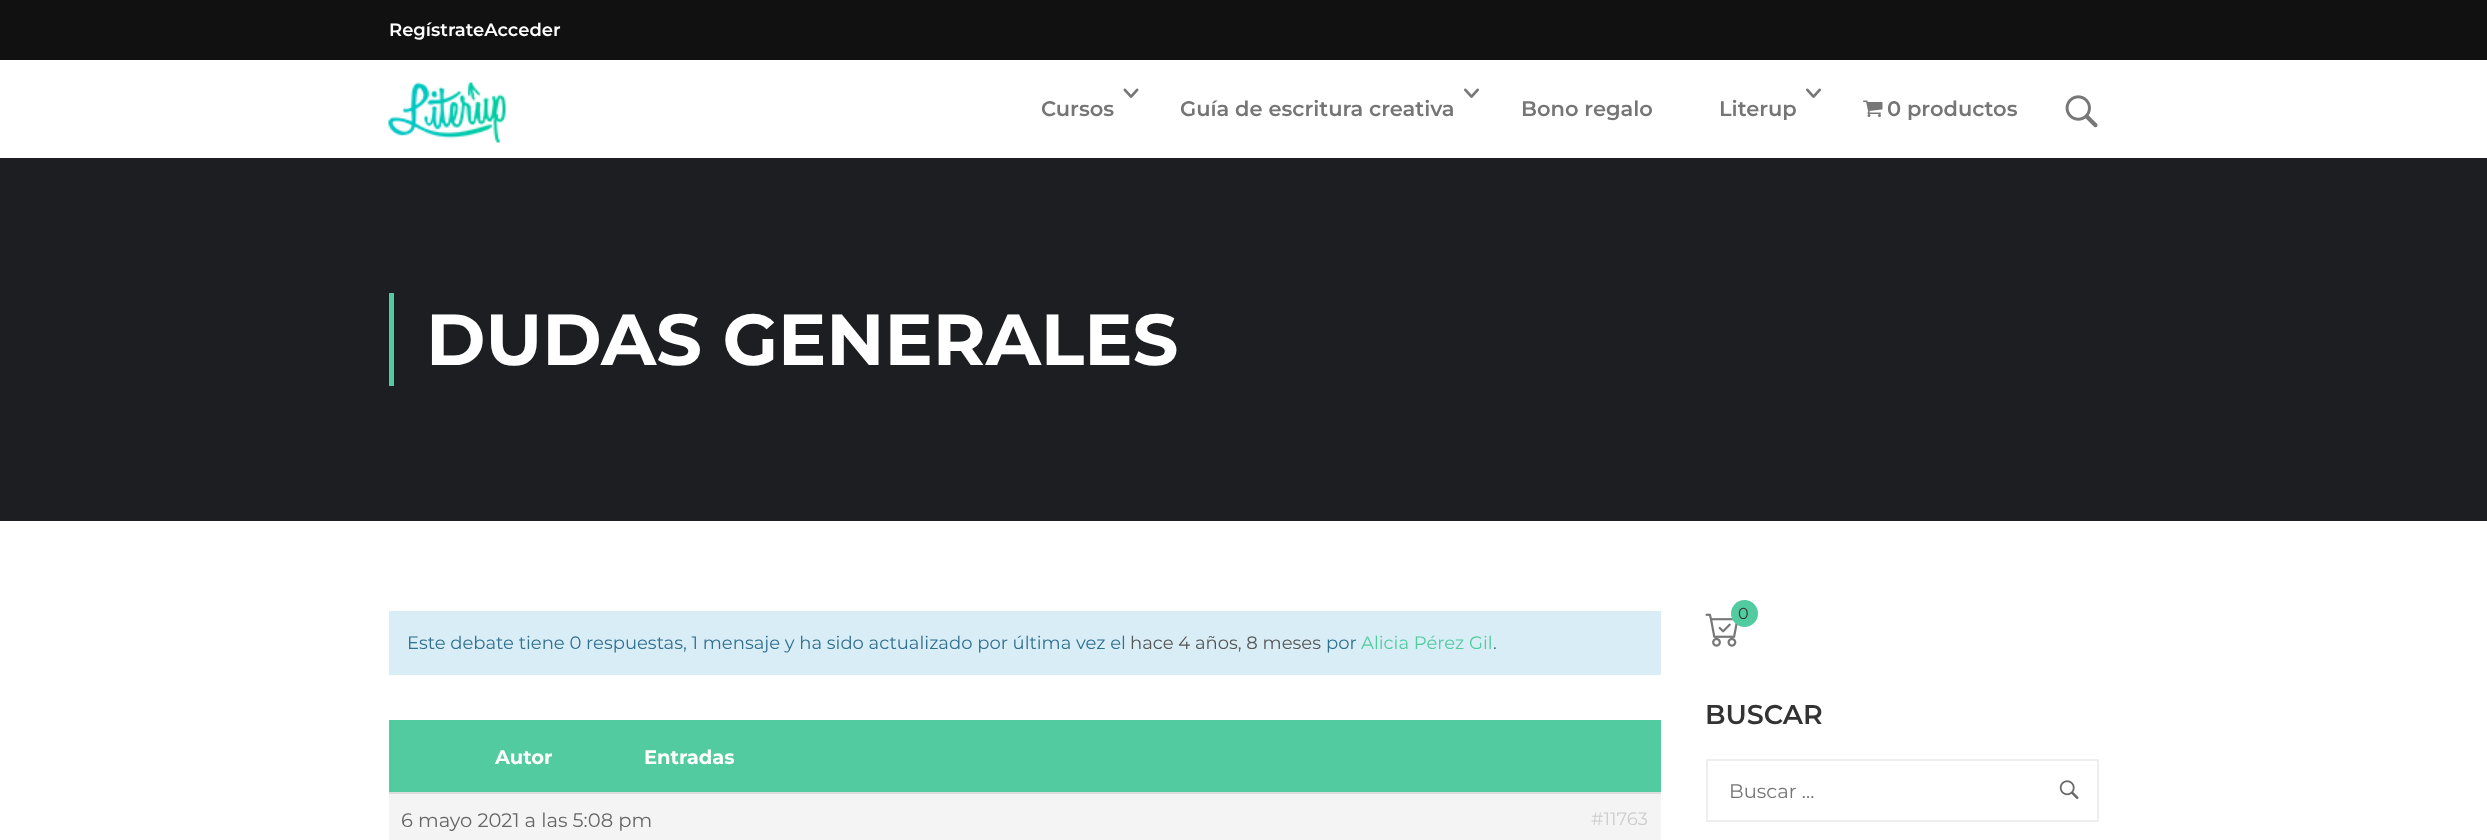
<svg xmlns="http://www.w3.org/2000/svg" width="2487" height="840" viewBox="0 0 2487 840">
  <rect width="100%" height="100%" fill="#ffffff"/>
  <rect x="0" y="0" width="2487" height="60" fill="#111111"/>
  <text x="389" y="36" font-family="Montserrat" font-size="18" font-weight="600" fill="#ffffff">RegístrateAcceder</text>
  <image x="388" y="82" width="118" height="61" href="img1.png"/>
  <image x="1123" y="88" width="16" height="10" href="img2.png"/>
  <text x="1041" y="116" font-family="Montserrat" font-size="21" font-weight="600" fill="#757575">Cursos</text>
  <image x="1464" y="88" width="15" height="10" href="img3.png"/>
  <text x="1180" y="116" font-family="Montserrat" font-size="21" font-weight="600" fill="#757575">Guía de escritura creativa</text>
  <text x="1521" y="116" font-family="Montserrat" font-size="21" font-weight="600" fill="#757575">Bono regalo</text>
  <image x="1806" y="88" width="15" height="10" href="img3.png"/>
  <text x="1719" y="116" font-family="Montserrat" font-size="21" font-weight="600" fill="#757575">Literup</text>
  <image x="1863" y="100" width="20" height="17" href="img4.png"/>
  <text x="1887" y="116" font-family="Montserrat" font-size="21" font-weight="600" fill="#757575">0 productos</text>
  <image x="2065" y="95" width="33" height="33" href="img5.png"/>
  <rect x="0" y="158" width="2487" height="363" fill="#1c1e22"/>
  <rect x="389" y="293" width="5" height="93" fill="#52cba0"/>
  <text x="426" y="365" font-family="Montserrat" font-size="72" font-weight="bold" fill="#ffffff">DUDAS GENERALES</text>
  <rect x="389" y="611" width="1272" height="64" fill="#d9edf7"/>
  <text x="407" y="649" font-family="Montserrat" font-size="18" fill="#31708f">Este debate tiene 0 respuestas, 1 mensaje y ha sido actualizado por última vez el</text>
  <text x="1130" y="649" font-family="Montserrat" font-size="18" fill="#555555">hace 4 años, 8 meses</text>
  <text x="1326" y="649" font-family="Montserrat" font-size="18" fill="#31708f">por</text>
  <text x="1361" y="649" font-family="Montserrat" font-size="18" fill="#52cba0">Alicia Pérez Gil</text>
  <text x="1493" y="649" font-family="Montserrat" font-size="18" fill="#31708f">.</text>
  <rect x="389" y="720" width="1272" height="72" fill="#52cba0"/>
  <text x="495" y="764" font-family="Montserrat" font-size="19.5" font-weight="bold" fill="#ffffff">Autor</text>
  <text x="644" y="764" font-family="Montserrat" font-size="19.5" font-weight="bold" fill="#ffffff">Entradas</text>
  <rect x="389" y="794" width="1272" height="46" fill="#f4f4f4"/>
  <rect x="389" y="792" width="1272" height="2" fill="#dddddd"/>
  <text x="401" y="827" font-family="Montserrat" font-size="19.5" fill="#666666">6 mayo 2021 a las 5:08 pm</text>
  <text x="1591" y="825" font-family="Montserrat" font-size="18" fill="#cccccc">#11763</text>
  <image x="1705" y="613" width="33" height="34" href="img6.png"/>
  <circle cx="1744.5" cy="613.5" r="13.5" fill="#52cba0"/>
  <text x="1738" y="619" font-family="Montserrat" font-size="16" fill="#333333">0</text>
  <text x="1705" y="724" font-family="Montserrat" font-size="27" font-weight="600" fill="#333333">BUSCAR</text>
  <rect x="1707" y="760" width="391" height="61" fill="none" stroke="#eeeeee" stroke-width="2"/>
  <text x="1729" y="798" font-family="Montserrat" font-size="19.5" fill="#757575">Buscar …</text>
  <image x="2059" y="780" width="20" height="19" href="img7.png"/>
</svg>
